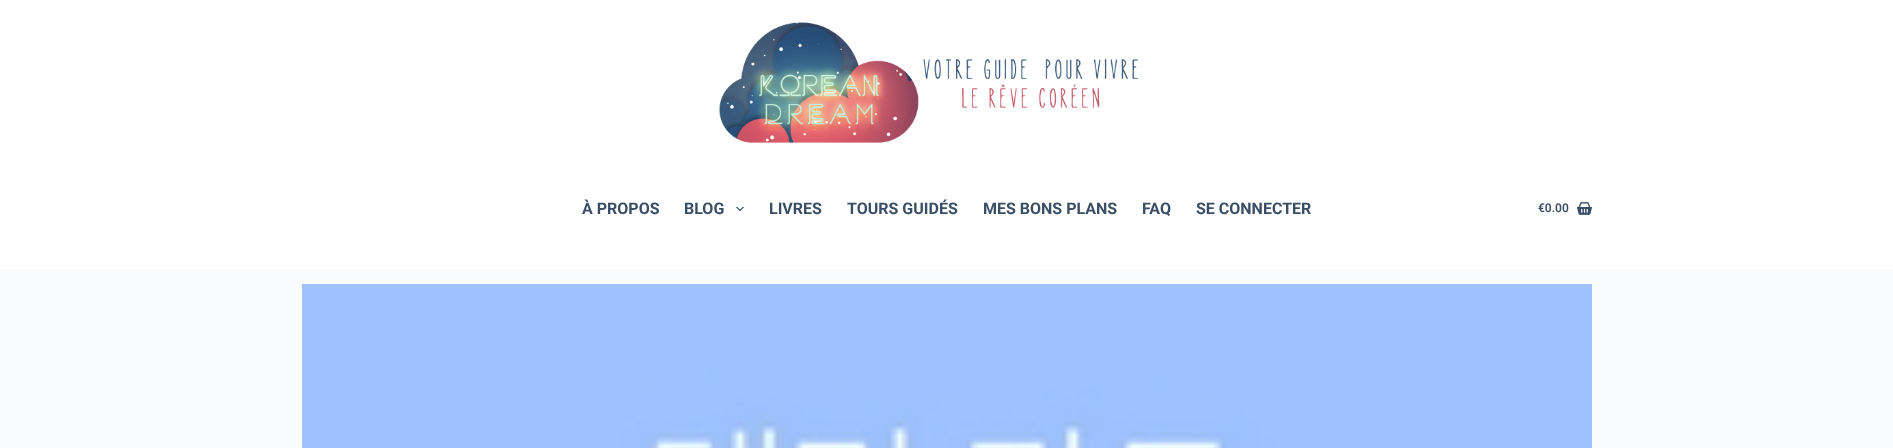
<svg xmlns="http://www.w3.org/2000/svg" width="1893" height="448" viewBox="0 0 1893 448">
  <rect width="100%" height="100%" fill="#fafbfc"/>
  <rect x="0" y="0" width="1893" height="269" fill="#ffffff"/>
  <image x="719" y="22" width="420" height="123" href="img1.png"/>
  <text x="582" y="214" font-family="Roboto" font-size="16" font-weight="bold" fill="#3a4f66">À PROPOS</text>
  <text x="684" y="214" font-family="Roboto" font-size="16" font-weight="bold" fill="#3a4f66">BLOG</text>
  <image x="736" y="206" width="8" height="6" href="img2.png"/>
  <text x="769" y="214" font-family="Roboto" font-size="16" font-weight="bold" fill="#3a4f66">LIVRES</text>
  <text x="847" y="214" font-family="Roboto" font-size="16" font-weight="bold" fill="#3a4f66">TOURS GUIDÉS</text>
  <text x="983" y="214" font-family="Roboto" font-size="16" font-weight="bold" fill="#3a4f66">MES BONS PLANS</text>
  <text x="1142" y="214" font-family="Roboto" font-size="16" font-weight="bold" fill="#3a4f66">FAQ</text>
  <text x="1196" y="214" font-family="Roboto" font-size="16" font-weight="bold" fill="#3a4f66">SE CONNECTER</text>
  <text x="1538" y="212" font-family="Roboto" font-size="12" font-weight="600" fill="#3a4f66">€0.00</text>
  <image x="1577" y="202" width="15" height="13" href="img3.png"/>
  <image x="302" y="284" width="1290" height="164" href="img4.png"/>
</svg>
